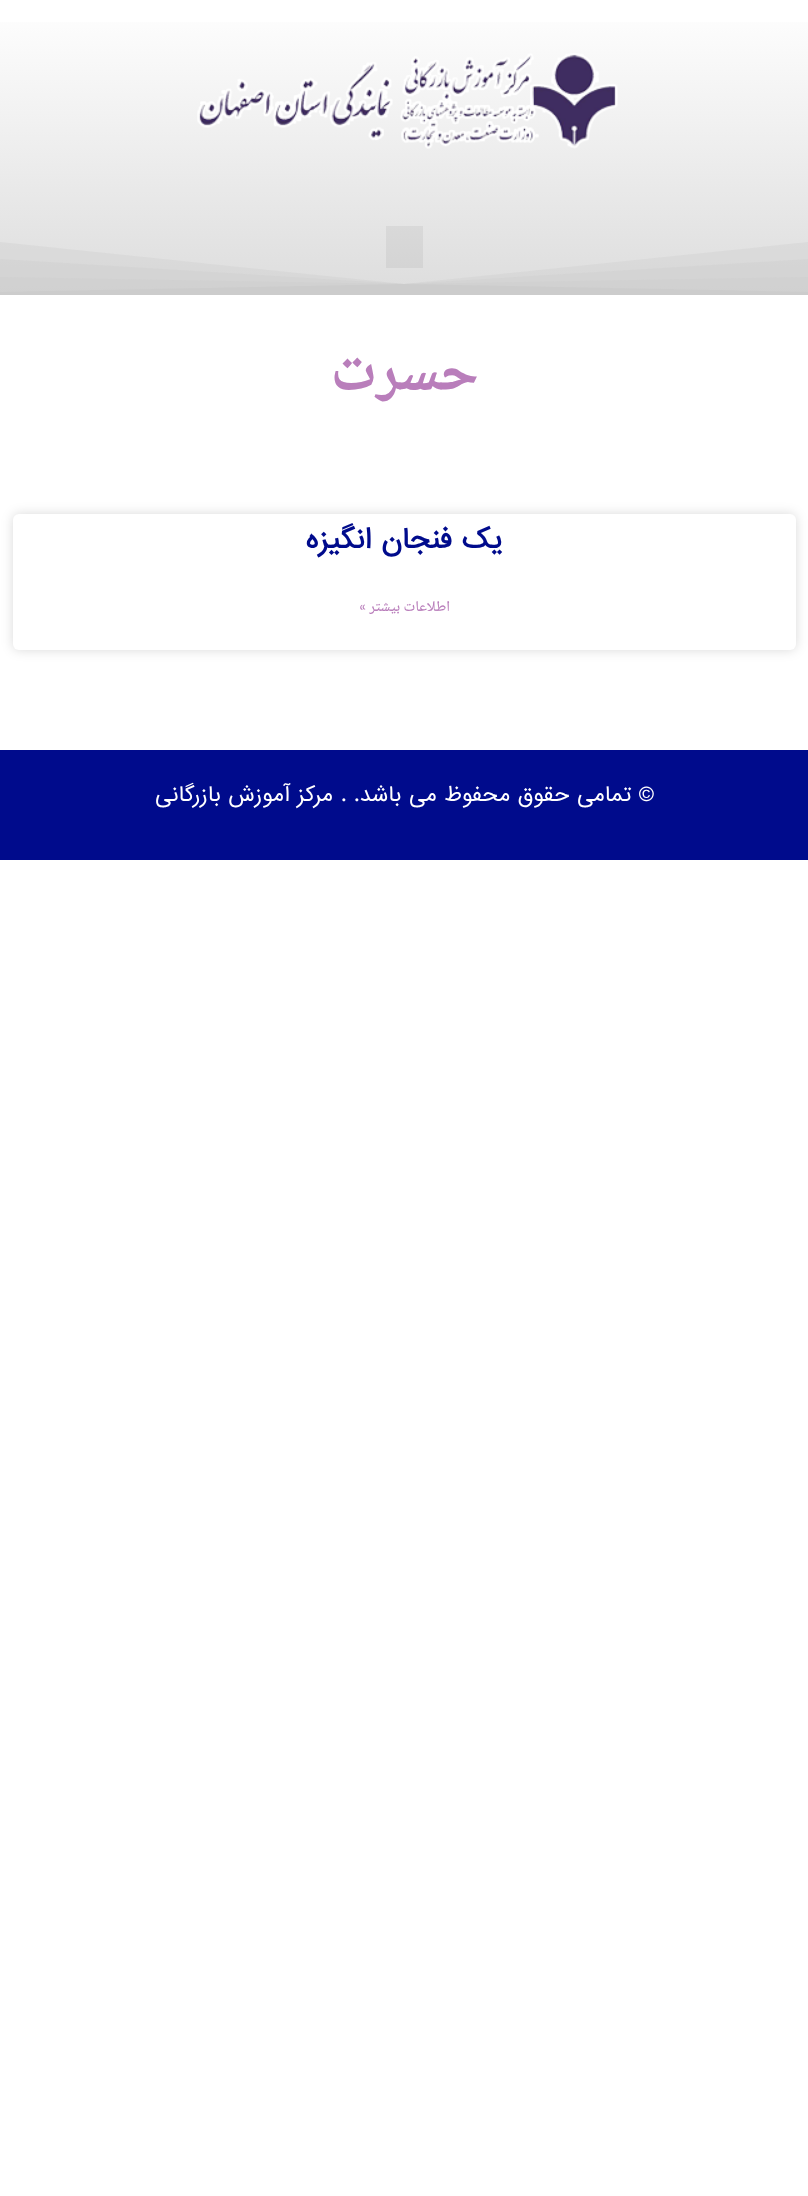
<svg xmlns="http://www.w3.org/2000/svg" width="808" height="2196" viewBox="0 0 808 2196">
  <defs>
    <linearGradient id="g1" gradientUnits="userSpaceOnUse" x1="404" y1="0" x2="404" y2="294"><stop offset="0" stop-color="#ffffff"/><stop offset="1" stop-color="#dddddd"/></linearGradient>
    <filter id="blur1" x="-50%" y="-200%" width="200%" height="500%"><feGaussianBlur stdDeviation="6"/></filter>
  </defs>
  <rect width="100%" height="100%" fill="#ffffff"/>
  <rect x="0" y="22" width="808" height="270" fill="url(#g1)"/>
  <image x="197" y="53" width="421" height="96" href="img1.png"/>
  <path d="M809 295V242L404 284L-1 242V295Z" fill="#cccccc" fill-opacity="0.33"/>
  <path d="M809 295V259L404 284L-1 259V295Z" fill="#cccccc" fill-opacity="0.33"/>
  <rect x="386" y="226" width="37" height="42" fill="#000000" fill-opacity="0.05"/>
  <path d="M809 295V277L404 284L-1 277V295Z" fill="#cccccc" fill-opacity="0.33"/>
  <path d="M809 295V292L404 284L-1 292V295Z" fill="#cccccc"/>
  <text x="479" y="389" font-family="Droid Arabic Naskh" font-size="50" font-weight="bold" direction="rtl" fill="#b97ebb">حسرت</text>
  <rect x="13" y="514" width="783" height="136" rx="6" fill="#000000" fill-opacity="0.15" filter="url(#blur1)"/>
  <rect x="13" y="514" width="783" height="136" rx="6" fill="#ffffff"/>
  <text x="503" y="548" font-family="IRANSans" font-size="26.25" font-weight="bold" direction="rtl" fill="#000b8c">یک فنجان انگیزه</text>
  <text x="450" y="611" font-family="Noto Naskh Arabic" font-size="15" font-weight="500" direction="rtl" fill="#b97ebb">اطلاعات بیشتر »</text>
  <rect x="0" y="750" width="808" height="110" fill="#000b8c"/>
  <text x="654" y="801" font-family="IRANSans" font-size="20" direction="rtl" fill="#ffffff">© تمامی حقوق محفوظ می باشد. .</text>
  <text x="333" y="801" font-family="IRANSans" font-size="20" direction="rtl" fill="#ffffff">مرکز آموزش بازرگانی</text>
</svg>
